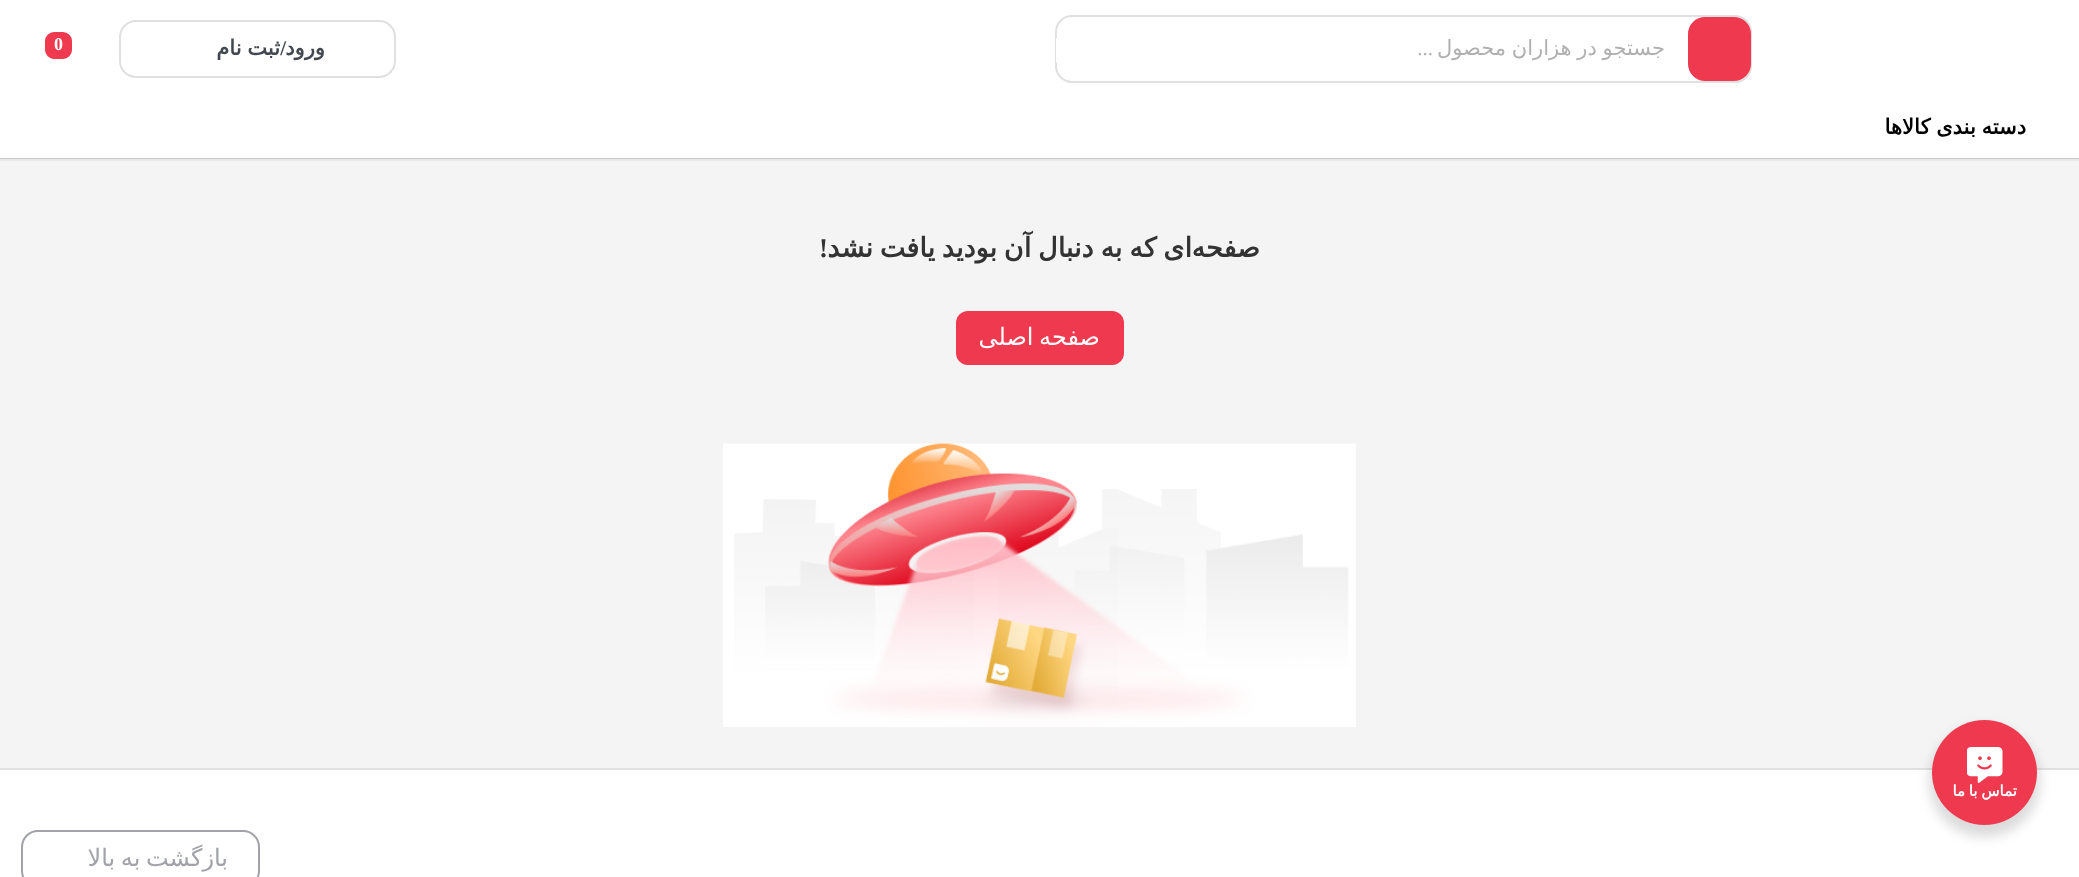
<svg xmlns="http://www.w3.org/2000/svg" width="2079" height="877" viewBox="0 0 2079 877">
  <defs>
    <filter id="blur1" x="-50%" y="-200%" width="200%" height="500%"><feGaussianBlur stdDeviation="6"/></filter>
  </defs>
  <rect width="100%" height="100%" fill="#f4f4f4"/>
  <rect x="0" y="0" width="2079" height="158" fill="#ffffff"/>
  <rect x="1056" y="16" width="695" height="66" rx="16" fill="none" stroke="#e0e0e0" stroke-width="2"/>
  <rect x="1688" y="17" width="63" height="64" rx="17" fill="#ef394e"/>
  <rect x="1056" y="38" width="1" height="24" fill="#ffffff"/>
  <text x="1665" y="55" word-spacing="-1" font-family="DejaVu Sans" font-size="21" direction="rtl" fill="#b0b0b0">جستجو در هزاران محصول</text>
  <text x="1433" y="55" font-family="Liberation Serif" font-size="21" direction="rtl" fill="#b0b0b0">...</text>
  <rect x="120" y="21" width="275" height="56" rx="16" fill="none" stroke="#e0e0e2" stroke-width="2"/>
  <text x="325" y="55" font-family="DejaVu Sans" font-size="21" font-weight="bold" direction="rtl" fill="#424750">ورود</text>
  <text x="280" y="55" word-spacing="-1" font-family="DejaVu Sans" font-size="21" font-weight="bold" direction="rtl" fill="#424750">ثبت نام</text>
  <text x="286" y="55" font-family="Liberation Serif" font-size="21" font-weight="bold" direction="rtl" fill="#424750">/</text>
  <rect x="43.5" y="30.5" width="30" height="30" rx="10.5" fill="#ef394e" stroke="#ffffff" stroke-width="3"/>
  <text x="54" y="50" font-family="Liberation Serif" font-size="18" font-weight="bold" fill="#ffffff">0</text>
  <rect x="0" y="159" width="2079" height="2" fill="#e8e8e8"/>
  <rect x="0" y="158" width="2079" height="1" fill="#c8c8c8"/>
  <text x="2026" y="134" word-spacing="-1" font-family="DejaVu Sans" font-size="21" font-weight="bold" direction="rtl" fill="#000000">دسته بندی کالاها</text>
  <text x="1260" y="257" font-family="DejaVu Sans" font-size="27" font-weight="bold" direction="rtl" fill="#333333">صفحه</text>
  <text x="1192" y="257" word-spacing="-1.75" font-family="DejaVu Sans" font-size="27" font-weight="bold" direction="rtl" fill="#333333">ای که به دنبال آن بودید یافت نشد</text>
  <text x="828" y="257" font-family="Liberation Serif" font-size="27" font-weight="bold" direction="rtl" fill="#333333">!</text>
  <rect x="956" y="311" width="168" height="54" rx="12" fill="#ef394e"/>
  <text x="1100" y="345" word-spacing="-2" font-family="DejaVu Sans" font-size="24" direction="rtl" fill="#ffffff">صفحه اصلی</text>
  <image x="723" y="443" width="633" height="284" href="img1.png"/>
  <rect x="0" y="770" width="2079" height="107" fill="#ffffff"/>
  <rect x="0" y="768" width="2079" height="2" fill="#e0e0e2"/>
  <rect x="1929" y="726" width="111" height="111" rx="55.5" fill="#000000" fill-opacity="0.14" filter="url(#blur1)"/>
  <circle cx="1984.5" cy="772.5" r="52.5" fill="#ef394e"/>
  <image x="1967" y="747" width="36" height="36" href="img2.png"/>
  <text x="2017" y="796" word-spacing="-1" font-family="DejaVu Sans" font-size="15" font-weight="bold" direction="rtl" fill="#ffffff">تماس با ما</text>
  <rect x="22" y="831" width="237" height="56" rx="16" fill="none" stroke="#a1a3a8" stroke-width="2"/>
  <text x="228" y="866" word-spacing="-2" font-family="DejaVu Sans" font-size="24" direction="rtl" fill="#a1a3a8">بازگشت به بالا</text>
</svg>
